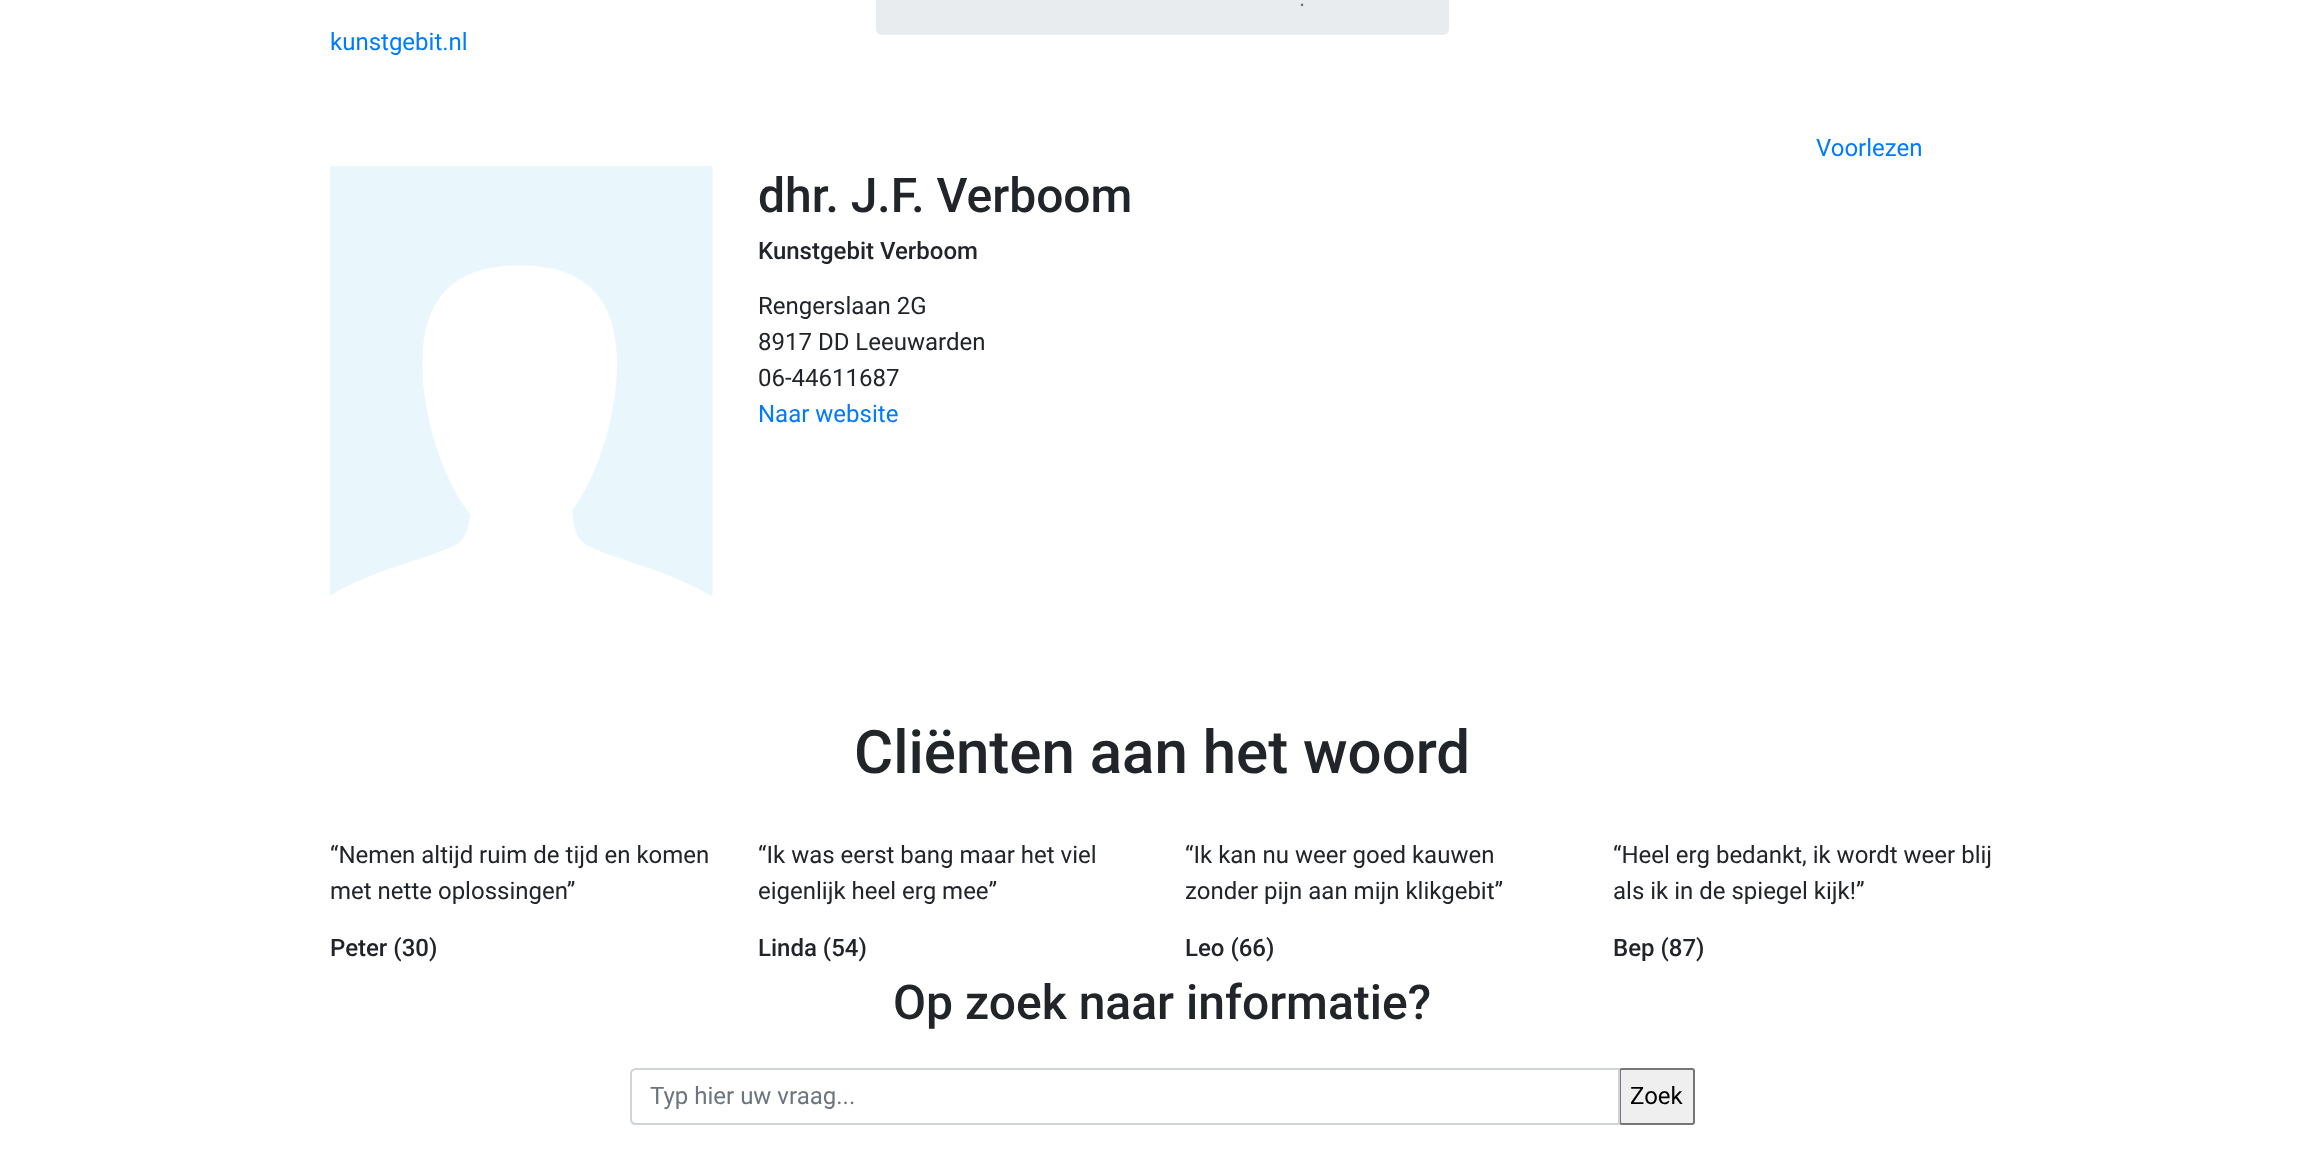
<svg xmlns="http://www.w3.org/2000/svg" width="2324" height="1162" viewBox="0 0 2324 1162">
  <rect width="100%" height="100%" fill="#ffffff"/>
  <text x="330" y="50" font-family="Roboto" font-size="24" fill="#007bff">kunstgebit.nl</text>
  <rect x="876" y="-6" width="573" height="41" rx="6" fill="#e9ecef"/>
  <text x="1299" y="6" font-family="Roboto" font-size="24" fill="#6c757d">.</text>
  <text x="1816" y="156" font-family="Roboto" font-size="24" fill="#007bff">Voorlezen</text>
  <image x="330" y="166" width="383" height="431" href="img1.png"/>
  <text x="758" y="212" font-family="Roboto" font-size="48" font-weight="500" fill="#212529">dhr. J.F. Verboom</text>
  <text x="758" y="259" font-family="Roboto" font-size="24" font-weight="500" fill="#212529">Kunstgebit Verboom</text>
  <text x="758" y="314" font-family="Roboto" font-size="24" fill="#212529">Rengerslaan 2G</text>
  <text x="758" y="350" font-family="Roboto" font-size="24" fill="#212529">8917 DD Leeuwarden</text>
  <text x="758" y="386" font-family="Roboto" font-size="24" fill="#212529">06-44611687</text>
  <text x="758" y="422" font-family="Roboto" font-size="24" fill="#007bff">Naar website</text>
  <text x="854" y="773" font-family="Roboto" font-size="60" font-weight="500" fill="#212529">Cliënten aan het woord</text>
  <text x="330" y="863" font-family="Roboto" font-size="24" fill="#212529">“Nemen altijd ruim de tijd en komen</text>
  <text x="330" y="899" font-family="Roboto" font-size="24" fill="#212529">met nette oplossingen”</text>
  <text x="330" y="956" font-family="Roboto" font-size="24" font-weight="500" fill="#212529">Peter (30)</text>
  <text x="758" y="863" font-family="Roboto" font-size="24" fill="#212529">“Ik was eerst bang maar het viel</text>
  <text x="758" y="899" font-family="Roboto" font-size="24" fill="#212529">eigenlijk heel erg mee”</text>
  <text x="758" y="956" font-family="Roboto" font-size="24" font-weight="500" fill="#212529">Linda (54)</text>
  <text x="1185" y="863" font-family="Roboto" font-size="24" fill="#212529">“Ik kan nu weer goed kauwen</text>
  <text x="1185" y="899" font-family="Roboto" font-size="24" fill="#212529">zonder pijn aan mijn klikgebit”</text>
  <text x="1185" y="956" font-family="Roboto" font-size="24" font-weight="500" fill="#212529">Leo (66)</text>
  <text x="1613" y="863" font-family="Roboto" font-size="24" fill="#212529">“Heel erg bedankt, ik wordt weer blij</text>
  <text x="1613" y="899" font-family="Roboto" font-size="24" fill="#212529">als ik in de spiegel kijk!”</text>
  <text x="1613" y="956" font-family="Roboto" font-size="24" font-weight="500" fill="#212529">Bep (87)</text>
  <text x="893" y="1019" font-family="Roboto" font-size="48" font-weight="500" fill="#212529">Op zoek naar informatie?</text>
  <rect x="1620" y="1069" width="74" height="55" rx="2" fill="#efefef" stroke="#767676" stroke-width="2"/>
  <path d="M636 1069H1619V1124H636C633 1124 631 1122 631 1119V1074C631 1071 633 1069 636 1069Z" fill="none" stroke="#ced4da" stroke-width="2"/>
  <text x="650" y="1104" font-family="Roboto" font-size="24" fill="#6c757d">Typ hier uw vraag...</text>
  <text x="1630" y="1104" font-family="Roboto" font-size="24" fill="#000000">Zoek</text>
</svg>
